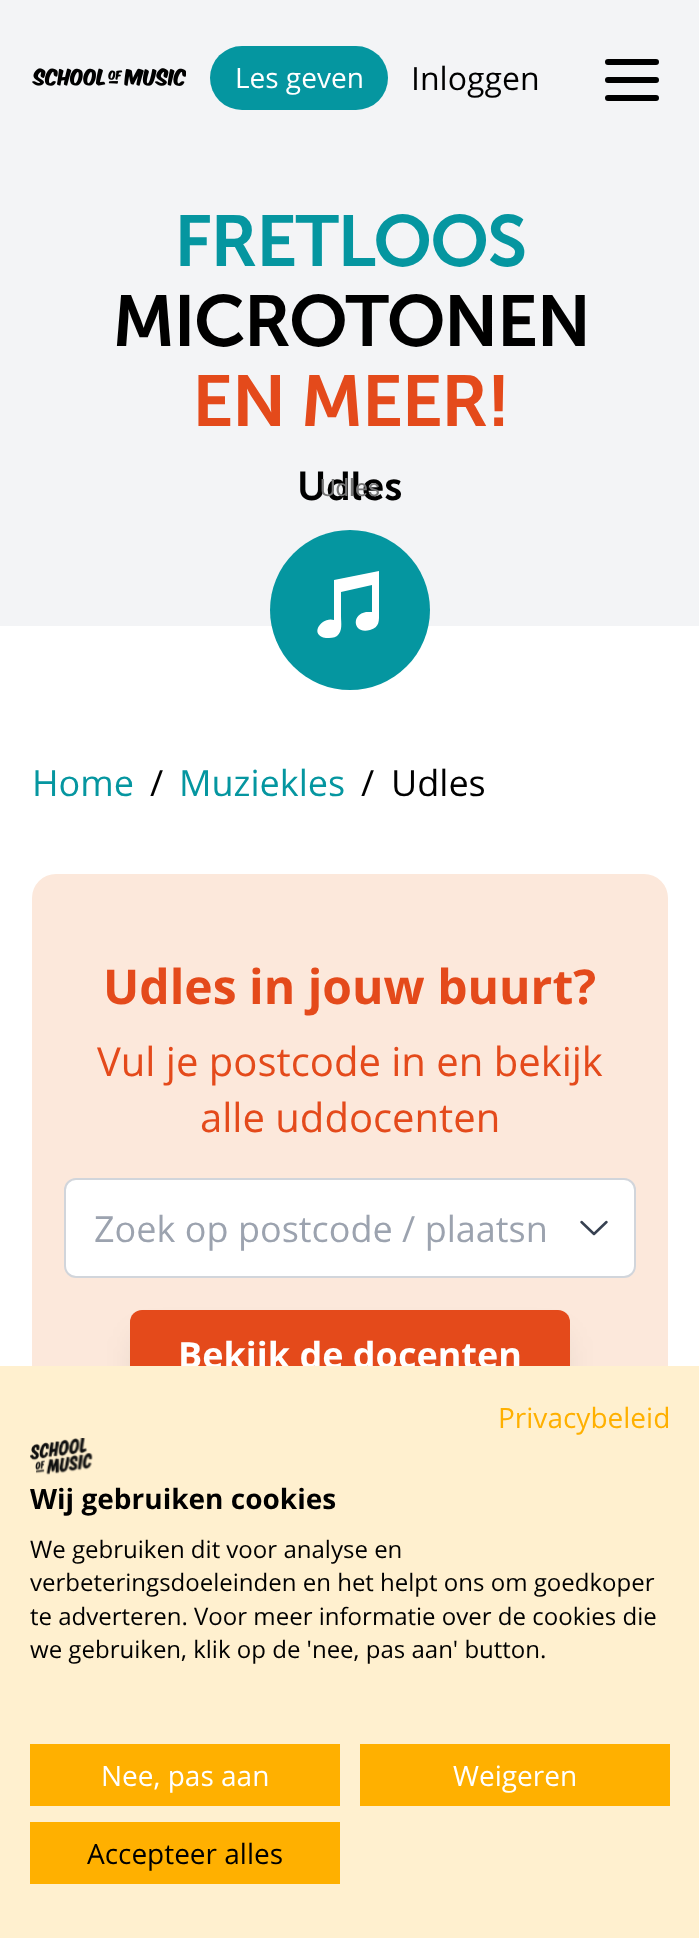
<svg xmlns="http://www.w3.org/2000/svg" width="699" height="1938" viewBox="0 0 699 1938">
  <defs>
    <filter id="blur1" x="-50%" y="-200%" width="200%" height="500%"><feGaussianBlur stdDeviation="15"/></filter>
  </defs>
  <rect width="100%" height="100%" fill="#ffffff"/>
  <rect x="0" y="0" width="699" height="626" fill="#f3f4f6"/>
  <image x="32" y="68" width="154" height="18" href="img1.png"/>
  <rect x="210" y="46" width="178" height="64" rx="32" fill="#0596a0"/>
  <text x="235" y="88" font-family="Open Sans" font-size="28" fill="#ffffff">Les geven</text>
  <text x="411" y="90" font-family="Open Sans" font-size="32" fill="#000000">Inloggen</text>
  <path d="M608 62H656M608 80H656M608 98H656" fill="none" stroke="#000000" stroke-width="6" stroke-linecap="round" stroke-linejoin="round"/>
  <text x="174" y="266" font-family="Museo Sans" font-size="72" font-weight="600" letter-spacing="-1.75" fill="#0596a0">FRETLOOS</text>
  <text x="112" y="346" font-family="Museo Sans" font-size="72" font-weight="600" letter-spacing="-1.75" fill="#000000">MICROTONEN</text>
  <text x="192" y="426" font-family="Museo Sans" font-size="72" font-weight="600" letter-spacing="-1.75" fill="#e44a1b">EN MEER!</text>
  <text x="297" y="500" font-family="Museo Sans" font-size="40" font-weight="600" fill="#000000">Udles</text>
  <circle cx="350" cy="610" r="80" fill="#0596a0"/>
  <text x="320" y="496" font-family="Roboto" font-size="24" fill="#767677">Udles</text>
  <path d="M326 638C308 635 322 616 334 620V580L379 571V612C379 621 380 627 370 630C354 635 350 615 366 612H372V585L341 592V616C341 623 343 631 337 636C334 638 330 638 326 638Z" fill="#ffffff"/>
  <text x="32" y="796" font-family="Open Sans" font-size="36" fill="#0596a0">Home</text>
  <text x="150" y="796" font-family="Open Sans" font-size="36" fill="#000000">/</text>
  <text x="179" y="796" font-family="Open Sans" font-size="36" fill="#0596a0">Muziekles</text>
  <text x="361" y="796" font-family="Open Sans" font-size="36" fill="#000000">/</text>
  <text x="391" y="796" font-family="Open Sans" font-size="36" fill="#000000">Udles</text>
  <rect x="32" y="874" width="636" height="604" rx="24" fill="#fce8db"/>
  <text x="103" y="1004" font-family="Open Sans" font-size="48" font-weight="bold" fill="#e44a1b">Udles in jouw buurt?</text>
  <text x="97" y="1076" font-family="Open Sans" font-size="40" fill="#e44a1b">Vul je postcode in en bekijk</text>
  <text x="200" y="1132" font-family="Open Sans" font-size="40" fill="#e44a1b">alle uddocenten</text>
  <rect x="65" y="1179" width="570" height="98" rx="11" fill="#ffffff" stroke="#d1d5db" stroke-width="2"/>
  <text x="94" y="1242" font-family="Open Sans" font-size="36" fill="#9ca3af">Zoek op postcode / plaatsn</text>
  <path d="M606.5 1222L594 1234L581.5 1222" fill="none" stroke="#374151" stroke-width="2.5" stroke-linecap="round" stroke-linejoin="round"/>
  <rect x="136" y="1336" width="428" height="76" rx="6" fill="#000000" fill-opacity="0.1" filter="url(#blur1)"/>
  <rect x="130" y="1310" width="440" height="88" rx="12" fill="#e44a1b"/>
  <text x="178" y="1368" font-family="Open Sans" font-size="36" font-weight="bold" fill="#ffffff">Bekijk de docenten</text>
  <rect x="0" y="1366" width="699" height="572" fill="#fff0cf"/>
  <text x="498" y="1428" font-family="Open Sans" font-size="28" fill="#ffb000">Privacybeleid</text>
  <image x="30" y="1438" width="63" height="37" href="img2.png"/>
  <text x="30" y="1509" font-family="Open Sans" font-size="28" font-weight="bold" fill="#000000">Wij gebruiken cookies</text>
  <text x="30" y="1558" font-family="Open Sans" font-size="24" fill="#000000">We gebruiken dit voor analyse en</text>
  <text x="30" y="1591" font-family="Open Sans" font-size="24" fill="#000000">verbeteringsdoeleinden en het helpt ons om goedkoper</text>
  <text x="30" y="1625" font-family="Open Sans" font-size="24" fill="#000000">te adverteren. Voor meer informatie over de cookies die</text>
  <text x="30" y="1658" font-family="Open Sans" font-size="24" fill="#000000">we gebruiken, klik op de 'nee, pas aan' button.</text>
  <rect x="30" y="1744" width="310" height="62" fill="#ffb000"/>
  <text x="101" y="1786" font-family="Open Sans" font-size="28" fill="#ffffff">Nee, pas aan</text>
  <rect x="360" y="1744" width="310" height="62" fill="#ffb000"/>
  <text x="453" y="1786" font-family="Open Sans" font-size="28" fill="#ffffff">Weigeren</text>
  <rect x="30" y="1822" width="310" height="62" fill="#ffb000"/>
  <text x="87" y="1864" font-family="Open Sans" font-size="28" fill="#000000">Accepteer alles</text>
</svg>
